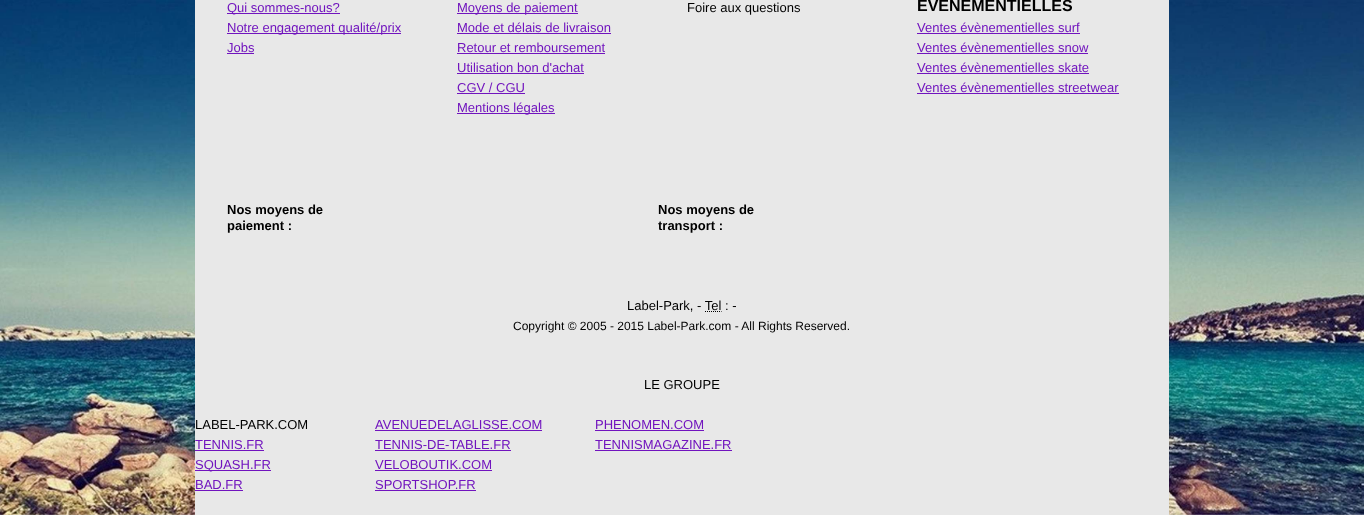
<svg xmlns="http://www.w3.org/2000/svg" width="1364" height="515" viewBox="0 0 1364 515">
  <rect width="100%" height="100%" fill="#ffffff"/>
  <image x="0" y="0" width="1364" height="515" href="img1.png"/>
  <rect x="195" y="0" width="974" height="515" fill="#e8e8e8"/>
  <rect x="227" y="13" width="113" height="1" fill="#7114be"/>
  <text x="227" y="12" font-family="Liberation Sans" font-size="13" fill="#7114be">Qui sommes-nous?</text>
  <rect x="227" y="33" width="174" height="1" fill="#7114be"/>
  <text x="227" y="32" font-family="Liberation Sans" font-size="13" fill="#7114be">Notre engagement qualité/prix</text>
  <text x="227" y="52" font-family="Liberation Sans" font-size="13" fill="#7114be">Jobs</text>
  <rect x="227" y="53" width="27" height="1" fill="#7114be"/>
  <rect x="457" y="13" width="121" height="1" fill="#7114be"/>
  <text x="457" y="12" font-family="Liberation Sans" font-size="13" fill="#7114be">Moyens de paiement</text>
  <text x="457" y="32" font-family="Liberation Sans" font-size="13" fill="#7114be">Mode et délais de livraison</text>
  <rect x="457" y="33" width="154" height="1" fill="#7114be"/>
  <text x="457" y="52" font-family="Liberation Sans" font-size="13" fill="#7114be">Retour et remboursement</text>
  <rect x="457" y="53" width="148" height="1" fill="#7114be"/>
  <text x="457" y="72" font-family="Liberation Sans" font-size="13" fill="#7114be">Utilisation bon d'achat</text>
  <rect x="457" y="73" width="127" height="1" fill="#7114be"/>
  <text x="457" y="92" font-family="Liberation Sans" font-size="13" fill="#7114be">CGV / CGU</text>
  <rect x="457" y="93" width="68" height="1" fill="#7114be"/>
  <rect x="457" y="113" width="98" height="1" fill="#7114be"/>
  <text x="457" y="112" font-family="Liberation Sans" font-size="13" fill="#7114be">Mentions légales</text>
  <text x="687" y="12" font-family="Liberation Sans" font-size="13" fill="#000000">Foire aux questions</text>
  <text x="917" y="11" font-family="Liberation Sans" font-size="16" font-weight="bold" fill="#000000">EVENEMENTIELLES</text>
  <text x="917" y="32" font-family="Liberation Sans" font-size="13" fill="#7114be">Ventes évènementielles surf</text>
  <rect x="917" y="33" width="163" height="1" fill="#7114be"/>
  <text x="917" y="52" font-family="Liberation Sans" font-size="13" fill="#7114be">Ventes évènementielles snow</text>
  <rect x="917" y="53" width="171" height="1" fill="#7114be"/>
  <text x="917" y="72" font-family="Liberation Sans" font-size="13" fill="#7114be">Ventes évènementielles skate</text>
  <rect x="917" y="73" width="172" height="1" fill="#7114be"/>
  <text x="917" y="92" font-family="Liberation Sans" font-size="13" fill="#7114be">Ventes évènementielles streetwear</text>
  <rect x="917" y="93" width="202" height="1" fill="#7114be"/>
  <text x="227" y="214" font-family="Liberation Sans" font-size="13" font-weight="bold" fill="#000000">Nos moyens de</text>
  <text x="227" y="230" font-family="Liberation Sans" font-size="13" font-weight="bold" fill="#000000">paiement :</text>
  <text x="658" y="214" font-family="Liberation Sans" font-size="13" font-weight="bold" fill="#000000">Nos moyens de</text>
  <text x="658" y="230" font-family="Liberation Sans" font-size="13" font-weight="bold" fill="#000000">transport :</text>
  <text x="627" y="310" font-family="Liberation Sans" font-size="13" fill="#000000">Label-Park, - Tel : -</text>
  <path d="M705 311.5H721.5" fill="none" stroke="#000000" stroke-dasharray="1 1"/>
  <text x="513" y="330" font-family="Liberation Sans" font-size="12" fill="#000000">Copyright © 2005 - 2015 Label-Park.com - All Rights Reserved.</text>
  <text x="644" y="389" font-family="Liberation Sans" font-size="13" fill="#000000">LE GROUPE</text>
  <text x="195" y="429" font-family="Liberation Sans" font-size="13" fill="#000000">LABEL-PARK.COM</text>
  <text x="195" y="449" font-family="Liberation Sans" font-size="13" fill="#7114be">TENNIS.FR</text>
  <rect x="195" y="450" width="69" height="1" fill="#7114be"/>
  <rect x="195" y="470" width="76" height="1" fill="#7114be"/>
  <text x="195" y="469" font-family="Liberation Sans" font-size="13" fill="#7114be">SQUASH.FR</text>
  <text x="195" y="489" font-family="Liberation Sans" font-size="13" fill="#7114be">BAD.FR</text>
  <rect x="195" y="490" width="48" height="1" fill="#7114be"/>
  <text x="375" y="429" font-family="Liberation Sans" font-size="13" fill="#7114be">AVENUEDELAGLISSE.COM</text>
  <rect x="375" y="430" width="167" height="1" fill="#7114be"/>
  <text x="375" y="449" font-family="Liberation Sans" font-size="13" fill="#7114be">TENNIS-DE-TABLE.FR</text>
  <rect x="375" y="450" width="136" height="1" fill="#7114be"/>
  <text x="375" y="469" font-family="Liberation Sans" font-size="13" fill="#7114be">VELOBOUTIK.COM</text>
  <rect x="375" y="470" width="117" height="1" fill="#7114be"/>
  <text x="375" y="489" font-family="Liberation Sans" font-size="13" fill="#7114be">SPORTSHOP.FR</text>
  <rect x="375" y="490" width="101" height="1" fill="#7114be"/>
  <text x="595" y="429" font-family="Liberation Sans" font-size="13" fill="#7114be">PHENOMEN.COM</text>
  <rect x="595" y="430" width="109" height="1" fill="#7114be"/>
  <text x="595" y="449" font-family="Liberation Sans" font-size="13" fill="#7114be">TENNISMAGAZINE.FR</text>
  <rect x="595" y="450" width="137" height="1" fill="#7114be"/>
</svg>
